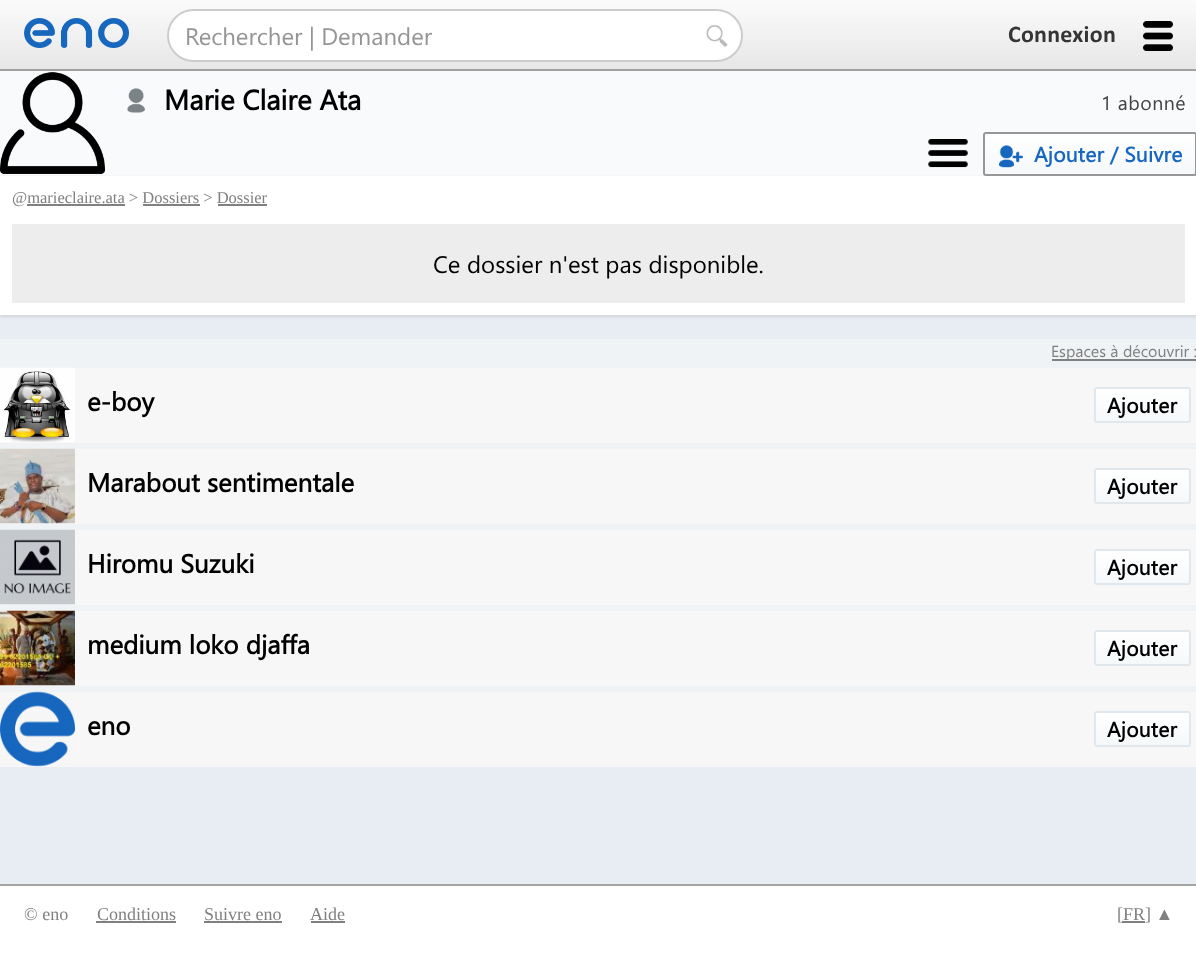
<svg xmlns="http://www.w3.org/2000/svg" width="1196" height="956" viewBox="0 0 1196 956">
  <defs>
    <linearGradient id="g1" gradientUnits="userSpaceOnUse" x1="599" y1="0" x2="599" y2="69"><stop offset="0" stop-color="#fbfbfb"/><stop offset="1" stop-color="#e7e7e7"/></linearGradient>
    <clipPath id="clip1"><path d="M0 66H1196V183H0ZM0 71H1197V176H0Z" clip-rule="evenodd"/></clipPath>
    <filter id="blur1" x="-50%" y="-200%" width="200%" height="500%"><feGaussianBlur stdDeviation="1.5"/></filter>
    <linearGradient id="g2" gradientUnits="userSpaceOnUse" x1="1090" y1="133" x2="1090" y2="174"><stop offset="0" stop-color="#ffffff"/><stop offset="1" stop-color="#f5f8fa"/></linearGradient>
    <clipPath id="clip2"><rect x="1094" y="387" width="97" height="36" rx="3"/></clipPath>
    <linearGradient id="g3" gradientUnits="userSpaceOnUse" x1="1142" y1="389" x2="1142" y2="422"><stop offset="0" stop-color="#ffffff"/><stop offset="1" stop-color="#f5f8fa"/></linearGradient>
    <clipPath id="clip3"><rect x="1094" y="468" width="97" height="36" rx="3"/></clipPath>
    <linearGradient id="g4" gradientUnits="userSpaceOnUse" x1="1142" y1="470" x2="1142" y2="503"><stop offset="0" stop-color="#ffffff"/><stop offset="1" stop-color="#f5f8fa"/></linearGradient>
    <clipPath id="clip4"><rect x="1094" y="549" width="97" height="36" rx="3"/></clipPath>
    <linearGradient id="g5" gradientUnits="userSpaceOnUse" x1="1142" y1="551" x2="1142" y2="584"><stop offset="0" stop-color="#ffffff"/><stop offset="1" stop-color="#f5f8fa"/></linearGradient>
    <clipPath id="clip5"><rect x="1094" y="630" width="97" height="36" rx="3"/></clipPath>
    <linearGradient id="g6" gradientUnits="userSpaceOnUse" x1="1142" y1="632" x2="1142" y2="665"><stop offset="0" stop-color="#ffffff"/><stop offset="1" stop-color="#f5f8fa"/></linearGradient>
    <clipPath id="clip6"><rect x="1094" y="711" width="97" height="36" rx="3"/></clipPath>
    <linearGradient id="g7" gradientUnits="userSpaceOnUse" x1="1142" y1="713" x2="1142" y2="746"><stop offset="0" stop-color="#ffffff"/><stop offset="1" stop-color="#f5f8fa"/></linearGradient>
  </defs>
  <rect width="100%" height="100%" fill="#ffffff"/>
  <rect x="0" y="0" width="1196" height="69" fill="url(#g1)"/>
  <rect x="0" y="69" width="1196" height="2" fill="#a4a4a4"/>
  <image x="24" y="18" width="105" height="30" href="img1.png"/>
  <rect x="168" y="10" width="574" height="51" rx="25.5" fill="#ffffff" stroke="#cccccc" stroke-width="2"/>
  <text x="185" y="45" font-family="Segoe UI" font-size="24" fill="#959595">Rechercher | Demander</text>
  <image x="706" y="24" width="22" height="23" href="img2.png"/>
  <text x="1008" y="42" font-family="Calibri" font-size="24" font-weight="bold" letter-spacing="0.25" fill="#353535">Connexion</text>
  <image x="1143" y="21" width="30" height="30" href="img3.png"/>
  <rect x="0" y="71" width="1196" height="813" fill="#e7edf2"/>
  <g clip-path="url(#clip1)">
    <rect x="0" y="72" width="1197" height="105" fill="#000000" fill-opacity="0.1" filter="url(#blur1)"/>
  </g>
  <rect x="0" y="71" width="1196" height="105" fill="#ffffff" fill-opacity="0.7"/>
  <rect x="0" y="177" width="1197" height="140" fill="#000000" fill-opacity="0.1" filter="url(#blur1)"/>
  <image x="0" y="72" width="105" height="102" href="img4.png"/>
  <image x="127" y="88" width="18" height="25" href="img5.png"/>
  <text x="164" y="110" font-family="Segoe UI" font-size="28" font-weight="bold" fill="#000000">Marie Claire Ata</text>
  <text x="1101" y="110" font-family="Segoe UI" font-size="19.5" letter-spacing="0.5" fill="#424242">1 abonné</text>
  <image x="928" y="139" width="40" height="29" href="img6.png"/>
  <rect x="983" y="134" width="212" height="39" fill="url(#g2)"/>
  <rect x="984" y="133" width="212" height="42" rx="2" fill="none" stroke="#979797" stroke-width="2"/>
  <image x="999" y="145" width="24" height="23" href="img7.png"/>
  <text x="1034" y="162" font-family="Segoe UI" font-size="21" font-weight="bold" letter-spacing="0.25" fill="#1767bf">Ajouter / Suivre</text>
  <rect x="0" y="176" width="1196" height="139" fill="#ffffff"/>
  <text x="12" y="203" font-family="Liberation Serif" font-size="16.5" fill="#808080">@marieclaire.ata &gt; Dossiers &gt; Dossier</text>
  <rect x="27" y="204" width="98" height="2" fill="#808080"/>
  <rect x="143" y="204" width="57" height="2" fill="#808080"/>
  <rect x="218" y="204" width="49" height="2" fill="#808080"/>
  <rect x="12" y="224" width="1173" height="79" fill="#eeeded"/>
  <text x="433" y="273" font-family="Segoe UI" font-size="24" fill="#000000">Ce dossier n'est pas disponible.</text>
  <rect x="0" y="339" width="1196" height="353" fill="#eff3f5"/>
  <rect x="1052" y="359" width="144" height="2" fill="#808080"/>
  <text x="1051" y="357" font-family="Segoe UI" font-size="16" fill="#808080">Espaces à découvrir :</text>
  <rect x="0" y="368" width="1196" height="75" fill="#f7f7f7"/>
  <image x="0" y="367" width="75" height="75" href="img8.png"/>
  <text x="87" y="411" font-family="Segoe UI" font-size="26" font-weight="bold" fill="#000000">e-boy</text>
  <g clip-path="url(#clip2)">
    <rect x="1094" y="389" width="97" height="33" fill="url(#g3)"/>
  </g>
  <rect x="1095" y="388" width="95" height="34" rx="2" fill="none" stroke="#e1e8ed" stroke-width="2"/>
  <text x="1107" y="413" font-family="Segoe UI" font-size="21" font-weight="bold" letter-spacing="0.25" fill="#000000">Ajouter</text>
  <rect x="0" y="449" width="1196" height="75" fill="#f7f7f7"/>
  <image x="0" y="448" width="75" height="76" href="img9.png"/>
  <text x="87" y="492" font-family="Segoe UI" font-size="26" font-weight="bold" fill="#000000">Marabout sentimentale</text>
  <g clip-path="url(#clip3)">
    <rect x="1094" y="470" width="97" height="33" fill="url(#g4)"/>
  </g>
  <rect x="1095" y="469" width="95" height="34" rx="2" fill="none" stroke="#e1e8ed" stroke-width="2"/>
  <text x="1107" y="494" font-family="Segoe UI" font-size="21" font-weight="bold" letter-spacing="0.25" fill="#000000">Ajouter</text>
  <rect x="0" y="530" width="1196" height="75" fill="#f7f7f7"/>
  <image x="0" y="529" width="75" height="76" href="img10.png"/>
  <text x="87" y="573" font-family="Segoe UI" font-size="26" font-weight="bold" fill="#000000">Hiromu Suzuki</text>
  <g clip-path="url(#clip4)">
    <rect x="1094" y="551" width="97" height="33" fill="url(#g5)"/>
  </g>
  <rect x="1095" y="550" width="95" height="34" rx="2" fill="none" stroke="#e1e8ed" stroke-width="2"/>
  <text x="1107" y="575" font-family="Segoe UI" font-size="21" font-weight="bold" letter-spacing="0.25" fill="#000000">Ajouter</text>
  <rect x="0" y="611" width="1196" height="75" fill="#f7f7f7"/>
  <image x="0" y="610" width="75" height="76" href="img11.png"/>
  <text x="87" y="654" font-family="Segoe UI" font-size="26" font-weight="bold" fill="#000000">medium loko djaffa</text>
  <g clip-path="url(#clip5)">
    <rect x="1094" y="632" width="97" height="33" fill="url(#g6)"/>
  </g>
  <rect x="1095" y="631" width="95" height="34" rx="2" fill="none" stroke="#e1e8ed" stroke-width="2"/>
  <text x="1107" y="656" font-family="Segoe UI" font-size="21" font-weight="bold" letter-spacing="0.25" fill="#000000">Ajouter</text>
  <rect x="0" y="692" width="1196" height="75" fill="#f7f7f7"/>
  <image x="0" y="691" width="75" height="76" href="img12.png"/>
  <text x="87" y="735" font-family="Segoe UI" font-size="26" font-weight="bold" fill="#000000">eno</text>
  <g clip-path="url(#clip6)">
    <rect x="1094" y="713" width="97" height="33" fill="url(#g7)"/>
  </g>
  <rect x="1095" y="712" width="95" height="34" rx="2" fill="none" stroke="#e1e8ed" stroke-width="2"/>
  <text x="1107" y="737" font-family="Segoe UI" font-size="21" font-weight="bold" letter-spacing="0.25" fill="#000000">Ajouter</text>
  <rect x="0" y="884" width="1196" height="2" fill="#a4a4a4"/>
  <text x="24" y="920" font-family="Liberation Serif" font-size="18" fill="#808080">© eno</text>
  <text x="97" y="920" font-family="Liberation Serif" font-size="18" fill="#808080">Conditions</text>
  <rect x="96" y="921" width="80" height="2" fill="#808080"/>
  <text x="204" y="920" font-family="Liberation Serif" font-size="18" fill="#808080">Suivre eno</text>
  <rect x="204" y="921" width="78" height="2" fill="#808080"/>
  <text x="310" y="920" font-family="Liberation Serif" font-size="18" fill="#808080">Aide</text>
  <rect x="311" y="921" width="34" height="2" fill="#808080"/>
  <text x="1117" y="920" font-family="Liberation Serif" font-size="18" fill="#808080">[FR] ▲</text>
  <rect x="1122" y="921" width="23" height="2" fill="#808080"/>
</svg>
